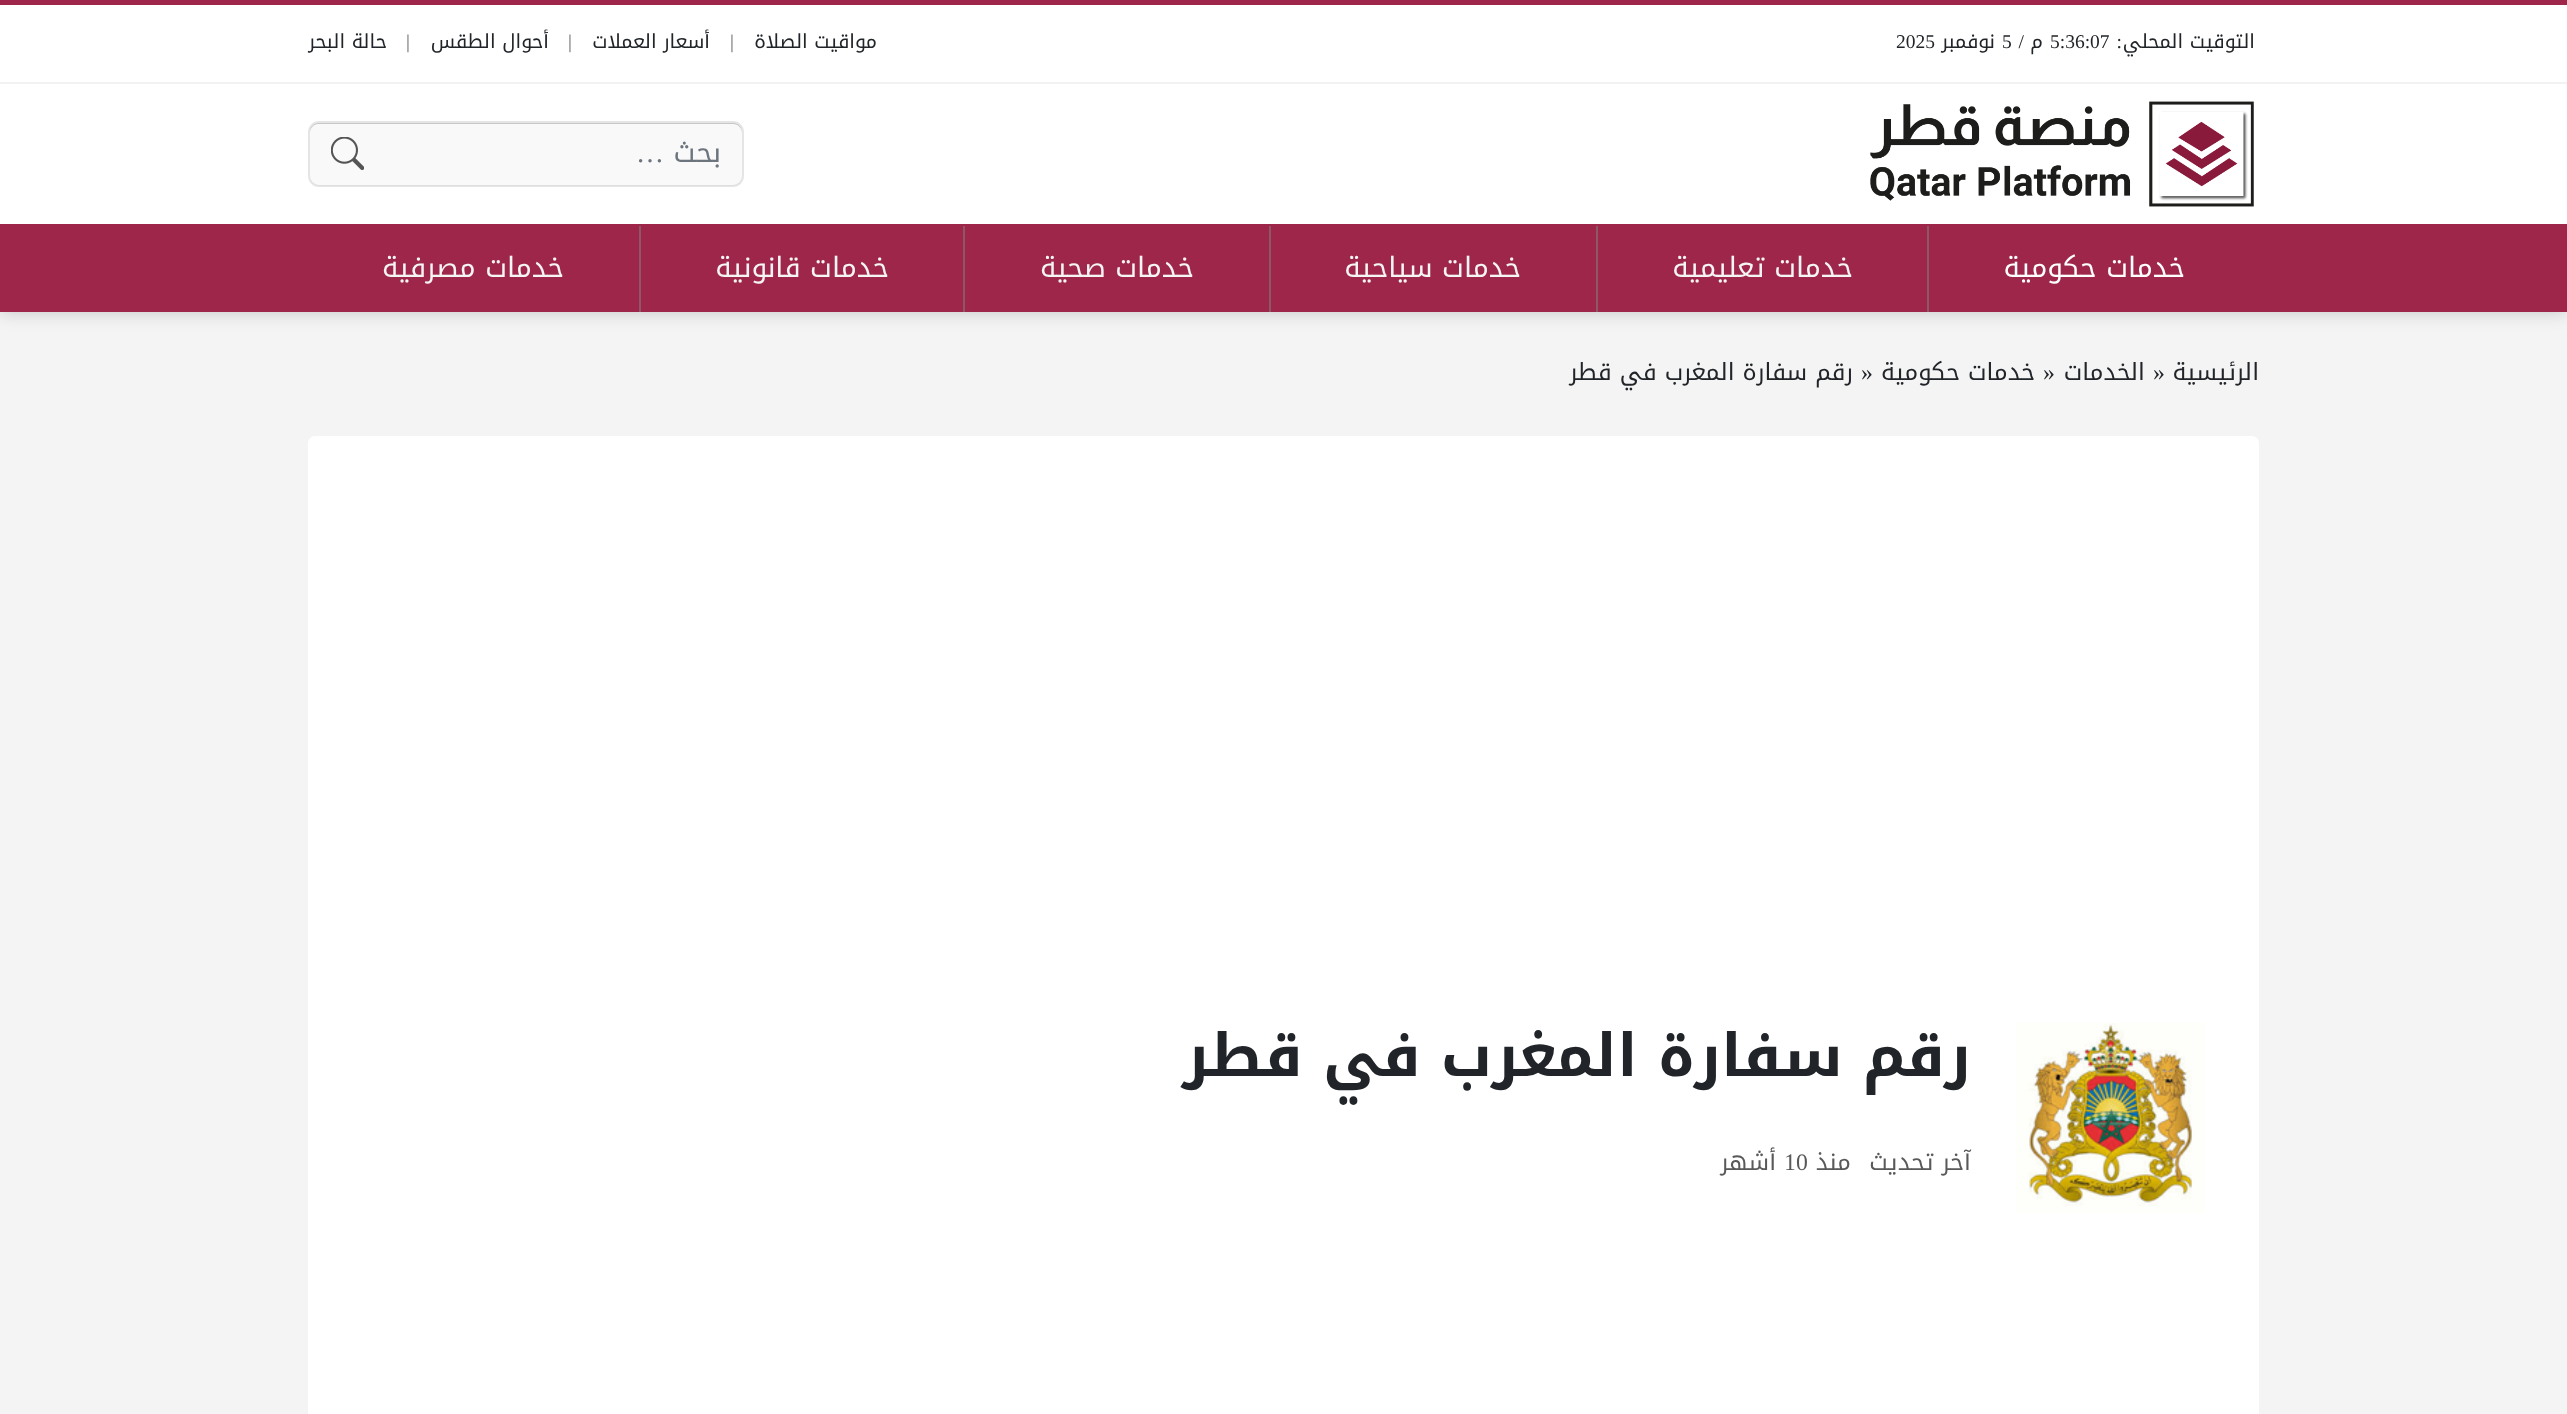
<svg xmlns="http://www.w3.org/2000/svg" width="2567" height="1414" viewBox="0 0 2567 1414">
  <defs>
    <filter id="blur1" x="-50%" y="-200%" width="200%" height="500%"><feGaussianBlur stdDeviation="9"/></filter>
  </defs>
  <rect width="100%" height="100%" fill="#f4f4f4"/>
  <rect x="0" y="0" width="2567" height="312" fill="#000000" fill-opacity="0.2" filter="url(#blur1)"/>
  <rect x="0" y="0" width="2567" height="5" fill="#9e264a"/>
  <rect x="0" y="5" width="2567" height="77" fill="#ffffff"/>
  <text x="2255" y="48" font-family="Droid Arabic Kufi" font-size="19.5" direction="rtl" fill="#212529">التوقيت المحلي</text>
  <text x="2122" y="48" font-family="Liberation Serif" font-size="19.5" direction="rtl" fill="#212529">:</text>
  <text x="2050" y="48" font-family="Liberation Serif" font-size="19.5" fill="#212529">5:36:07</text>
  <text x="2043" y="48" font-family="Droid Arabic Kufi" font-size="19.5" direction="rtl" fill="#212529">م</text>
  <text x="2024" y="48" font-family="Liberation Serif" font-size="19.5" direction="rtl" fill="#212529">/</text>
  <text x="2002" y="48" font-family="Liberation Serif" font-size="19.5" fill="#212529">5</text>
  <text x="1995" y="48" font-family="Droid Arabic Kufi" font-size="19.5" direction="rtl" fill="#212529">نوفمبر</text>
  <text x="1896" y="48" font-family="Liberation Serif" font-size="19.5" fill="#212529">2025</text>
  <text x="877" y="48" font-family="Droid Arabic Kufi" font-size="19.5" direction="rtl" fill="#212529">مواقيت الصلاة</text>
  <text x="730" y="48" font-family="Liberation Serif" font-size="19.5" fill="#646669">|</text>
  <text x="710" y="48" font-family="Droid Arabic Kufi" font-size="19.5" direction="rtl" fill="#212529">أسعار العملات</text>
  <text x="568" y="48" font-family="Liberation Serif" font-size="19.5" fill="#646669">|</text>
  <text x="549" y="48" font-family="Droid Arabic Kufi" font-size="19.5" direction="rtl" fill="#212529">أحوال الطقس</text>
  <text x="406" y="48" font-family="Liberation Serif" font-size="19.5" fill="#646669">|</text>
  <text x="387" y="48" font-family="Droid Arabic Kufi" font-size="19.5" direction="rtl" fill="#212529">حالة البحر</text>
  <rect x="0" y="84" width="2567" height="140" fill="#ffffff"/>
  <rect x="0" y="82" width="2567" height="2" fill="#f2f2f2"/>
  <image x="1870" y="101" width="384" height="106" href="img1.png"/>
  <rect x="310" y="123" width="432" height="63" rx="9" fill="#f9f9f9"/>
  <image x="331" y="137" width="33" height="33" href="img2.png"/>
  <path d="M318 124H733C738 124 742 128 742 133V132C742 127 738 123 733 123H319C314 123 310 127 310 132V133C310 128 314 124 318 124Z" fill="#c7c7c7"/>
  <rect x="309" y="122" width="434" height="64" rx="10" fill="none" stroke="#000000" stroke-opacity="0.1" stroke-width="2"/>
  <text x="721" y="162" font-family="Droid Arabic Kufi" font-size="28" direction="rtl" fill="#6c757d">بحث</text>
  <text x="664" y="162" font-family="Liberation Serif" font-size="28" direction="rtl" fill="#6c757d">…</text>
  <rect x="0" y="224" width="2567" height="88" fill="#9e264a"/>
  <rect x="1927" y="226" width="2" height="86" fill="#8e5767"/>
  <text x="2185" y="277" font-family="Droid Arabic Kufi" font-size="28" direction="rtl" fill="#ffffff">خدمات حكومية</text>
  <rect x="1596" y="226" width="2" height="86" fill="#8e5767"/>
  <text x="1853" y="277" font-family="Droid Arabic Kufi" font-size="28" direction="rtl" fill="#f5f5f5">خدمات تعليمية</text>
  <rect x="1269" y="226" width="2" height="86" fill="#8e5767"/>
  <text x="1521" y="277" font-family="Droid Arabic Kufi" font-size="28" direction="rtl" fill="#f5f5f5">خدمات سياحية</text>
  <rect x="963" y="226" width="2" height="86" fill="#8e5767"/>
  <text x="1194" y="277" font-family="Droid Arabic Kufi" font-size="28" direction="rtl" fill="#f5f5f5">خدمات صحية</text>
  <rect x="639" y="226" width="2" height="86" fill="#8e5767"/>
  <text x="889" y="277" font-family="Droid Arabic Kufi" font-size="28" direction="rtl" fill="#f5f5f5">خدمات قانونية</text>
  <text x="564" y="277" font-family="Droid Arabic Kufi" font-size="28" direction="rtl" fill="#f5f5f5">خدمات مصرفية</text>
  <text x="2259" y="380" font-family="Droid Arabic Kufi" font-size="23.75" direction="rtl" fill="#212529">الرئيسية</text>
  <text x="2153" y="380" font-family="Liberation Serif" font-size="23.75" fill="#212529">»</text>
  <text x="2145" y="380" font-family="Droid Arabic Kufi" font-size="23.75" direction="rtl" fill="#212529">الخدمات</text>
  <text x="2043" y="380" font-family="Liberation Serif" font-size="23.75" fill="#212529">»</text>
  <text x="2035" y="380" font-family="Droid Arabic Kufi" font-size="23.75" direction="rtl" fill="#212529">خدمات حكومية</text>
  <text x="1861" y="380" font-family="Liberation Serif" font-size="23.75" fill="#212529">»</text>
  <text x="1853" y="380" font-family="Droid Arabic Kufi" font-size="23.75" direction="rtl" fill="#212529">رقم سفارة المغرب في قطر</text>
  <rect x="308" y="436" width="1951" height="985" rx="7" fill="#ffffff"/>
  <image x="2016" y="1023" width="189" height="190" href="img3.png"/>
  <text x="1971" y="1076" font-family="Droid Arabic Kufi" font-size="59.25" font-weight="bold" direction="rtl" fill="#212529">رقم سفارة المغرب في قطر</text>
  <text x="1971" y="1170" font-family="Droid Arabic Kufi" font-size="23.75" direction="rtl" fill="#595959">آخر تحديث</text>
  <text x="1851" y="1170" font-family="Droid Arabic Kufi" font-size="23.75" direction="rtl" fill="#595959">منذ</text>
  <text x="1784" y="1170" font-family="Liberation Serif" font-size="23.75" fill="#595959">10</text>
  <text x="1776" y="1170" font-family="Droid Arabic Kufi" font-size="23.75" direction="rtl" fill="#595959">أشهر</text>
</svg>
